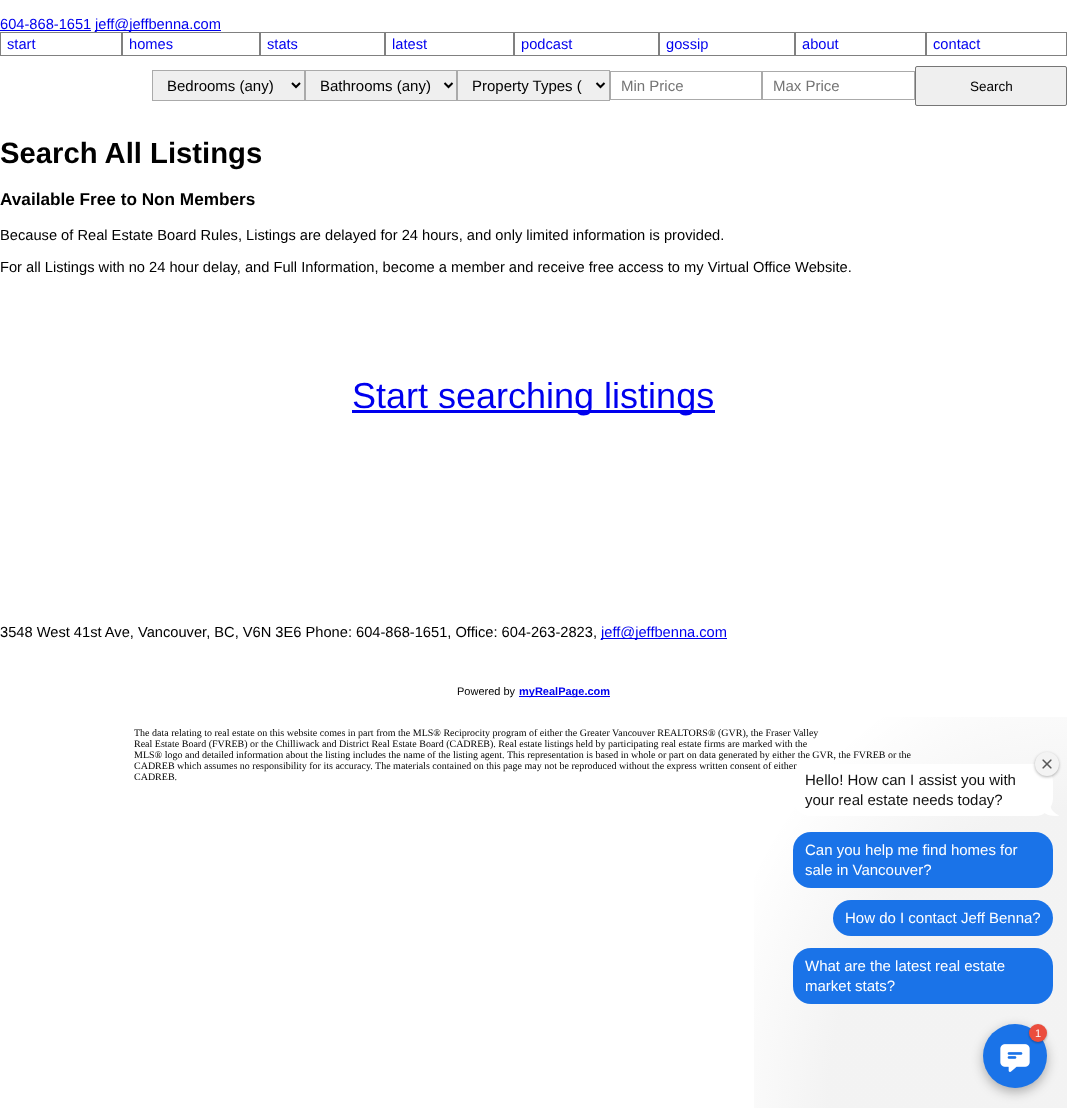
<svg xmlns="http://www.w3.org/2000/svg" width="1067" height="1108" viewBox="0 0 1067 1108">
  <defs>
    <radialGradient id="g1" gradientUnits="userSpaceOnUse" cx="0" cy="0" r="1" gradientTransform="matrix(368 0 0 460 1067 1108)"><stop offset="0.65" stop-color="#111111" stop-opacity="0.05"/><stop offset="1" stop-color="#111111" stop-opacity="0"/></radialGradient>
    <filter id="blur1" x="-50%" y="-200%" width="200%" height="500%"><feGaussianBlur stdDeviation="1.5"/></filter>
    <filter id="blur2" x="-50%" y="-200%" width="200%" height="500%"><feGaussianBlur stdDeviation="6"/></filter>
    <filter id="blur3" x="-50%" y="-200%" width="200%" height="500%"><feGaussianBlur stdDeviation="1"/></filter>
  </defs>
  <rect width="100%" height="100%" fill="#ffffff"/>
  <text x="0" y="29" font-family="Liberation Sans" font-size="14.67" fill="#0000ee">604-868-1651</text>
  <rect x="0" y="30" width="91" height="1" fill="#0000ee"/>
  <rect x="95" y="30" width="126" height="1" fill="#0000ee"/>
  <text x="95" y="29" font-family="Liberation Sans" font-size="14.67" fill="#0000ee">jeff@jeffbenna.com</text>
  <rect x="0.5" y="32.5" width="121" height="23" fill="none" stroke="#808080"/>
  <text x="7" y="49" font-family="Liberation Sans" font-size="14.67" fill="#0000ee">start</text>
  <rect x="122.5" y="32.5" width="137" height="23" fill="none" stroke="#808080"/>
  <text x="129" y="49" font-family="Liberation Sans" font-size="14.67" fill="#0000ee">homes</text>
  <rect x="260.5" y="32.5" width="124" height="23" fill="none" stroke="#808080"/>
  <text x="267" y="49" font-family="Liberation Sans" font-size="14.67" fill="#0000ee">stats</text>
  <rect x="385.5" y="32.5" width="128" height="23" fill="none" stroke="#808080"/>
  <text x="392" y="49" font-family="Liberation Sans" font-size="14.67" fill="#0000ee">latest</text>
  <rect x="514.5" y="32.5" width="144" height="23" fill="none" stroke="#808080"/>
  <text x="521" y="49" font-family="Liberation Sans" font-size="14.67" fill="#0000ee">podcast</text>
  <rect x="659.5" y="32.5" width="135" height="23" fill="none" stroke="#808080"/>
  <text x="666" y="49" font-family="Liberation Sans" font-size="14.67" fill="#0000ee">gossip</text>
  <rect x="795.5" y="32.5" width="130" height="23" fill="none" stroke="#808080"/>
  <text x="802" y="49" font-family="Liberation Sans" font-size="14.67" fill="#0000ee">about</text>
  <rect x="926.5" y="32.5" width="140" height="23" fill="none" stroke="#808080"/>
  <text x="933" y="49" font-family="Liberation Sans" font-size="14.67" fill="#0000ee">contact</text>
  <rect x="152.5" y="70.5" width="152" height="30" fill="#efefef" stroke="#aaaaaa"/>
  <path d="M292 83L296 87L300 83" fill="none" stroke="#000000" stroke-width="2"/>
  <text x="167" y="91" font-family="Liberation Sans" font-size="15" fill="#000000">Bedrooms (any)</text>
  <rect x="305.5" y="70.5" width="151" height="30" fill="#efefef" stroke="#aaaaaa"/>
  <path d="M444.5 83L448.5 87L452.5 83" fill="none" stroke="#000000" stroke-width="2"/>
  <text x="320" y="91" font-family="Liberation Sans" font-size="15" fill="#000000">Bathrooms (any)</text>
  <rect x="457.5" y="70.5" width="152" height="30" fill="#efefef" stroke="#aaaaaa"/>
  <path d="M596.5 83L600.5 87L604.5 83" fill="none" stroke="#000000" stroke-width="2"/>
  <text x="472" y="91" font-family="Liberation Sans" font-size="15" fill="#000000">Property Types (</text>
  <rect x="610.5" y="71.5" width="151" height="28" fill="none" stroke="#aaaaaa"/>
  <text x="621" y="91" font-family="Liberation Sans" font-size="15" fill="#757575">Min Price</text>
  <rect x="762.5" y="71.5" width="152" height="28" fill="none" stroke="#aaaaaa"/>
  <text x="773" y="91" font-family="Liberation Sans" font-size="15" fill="#757575">Max Price</text>
  <rect x="915.5" y="66.5" width="151" height="39" rx="1.5" fill="#efefef" stroke="#767676"/>
  <text x="970" y="91" font-family="Liberation Sans" font-size="13.5" fill="#000000">Search</text>
  <text x="0" y="163" font-family="Liberation Sans" font-size="29.25" font-weight="bold" fill="#000000">Search All Listings</text>
  <text x="0" y="205" font-family="Liberation Sans" font-size="17.2" font-weight="bold" fill="#000000">Available Free to Non Members</text>
  <text x="0" y="240" font-family="Liberation Sans" font-size="14.67" fill="#000000">Because of Real Estate Board Rules, Listings are delayed for 24 hours, and only limited information is provided.</text>
  <text x="0" y="272" font-family="Liberation Sans" font-size="14.67" fill="#000000">For all Listings with no 24 hour delay, and Full Information, become a member and receive free access to my Virtual Office Website.</text>
  <rect x="352" y="410" width="363" height="3" fill="#0000ee"/>
  <text x="352" y="408" font-family="Liberation Sans" font-size="36" fill="#0000ee">Start searching listings</text>
  <text x="0" y="637" font-family="Liberation Sans" font-size="14.67" fill="#000000">3548 West 41st Ave, Vancouver, BC, V6N 3E6 Phone: 604-868-1651, Office: 604-263-2823,</text>
  <rect x="601" y="638" width="126" height="1" fill="#0000ee"/>
  <text x="601" y="637" font-family="Liberation Sans" font-size="14.67" fill="#0000ee">jeff@jeffbenna.com</text>
  <text x="457" y="695" font-family="Liberation Sans" font-size="11" fill="#000000">Powered by</text>
  <rect x="519" y="696" width="91" height="1" fill="#0000ee"/>
  <text x="519" y="695" font-family="Liberation Sans" font-size="11" font-weight="bold" fill="#0000ee">myRealPage.com</text>
  <text x="134" y="736" font-family="Liberation Serif" font-size="10" fill="#000000">The data relating to real estate on this website comes in part from the MLS® Reciprocity program of either the Greater Vancouver REALTORS® (GVR), the Fraser Valley</text>
  <text x="134" y="747" font-family="Liberation Serif" font-size="10" fill="#000000">Real Estate Board (FVREB) or the Chilliwack and District Real Estate Board (CADREB). Real estate listings held by participating real estate firms are marked with the</text>
  <text x="134" y="758" font-family="Liberation Serif" font-size="10" fill="#000000">MLS® logo and detailed information about the listing includes the name of the listing agent. This representation is based in whole or part on data generated by either the GVR, the FVREB or the</text>
  <text x="134" y="769" font-family="Liberation Serif" font-size="10" fill="#000000">CADREB which assumes no responsibility for its accuracy. The materials contained on this page may not be reproduced without the express written consent of either</text>
  <text x="134" y="780" font-family="Liberation Serif" font-size="10" fill="#000000">CADREB.</text>
  <rect x="754" y="717" width="313" height="391" fill="url(#g1)"/>
  <rect x="793" y="764" width="260" height="52" rx="18" fill="#ffffff"/>
  <rect x="1035" y="753" width="24" height="24" rx="12" fill="#000000" fill-opacity="0.3" filter="url(#blur1)"/>
  <circle cx="1047" cy="764" r="12" fill="#f3f3f3"/>
  <image x="1042" y="759" width="10" height="10" href="img1.png"/>
  <text x="805" y="785" font-family="Liberation Sans" font-size="15" fill="#111111">Hello! How can I assist you with</text>
  <text x="805" y="805" font-family="Liberation Sans" font-size="15" fill="#111111">your real estate needs today?</text>
  <image x="1045" y="807" width="14" height="9" href="img2.png"/>
  <rect x="793" y="832" width="260" height="56" rx="18" fill="#1a73e8"/>
  <text x="805" y="855" font-family="Liberation Sans" font-size="15" fill="#ffffff">Can you help me find homes for</text>
  <text x="805" y="875" font-family="Liberation Sans" font-size="15" fill="#ffffff">sale in Vancouver?</text>
  <rect x="833" y="900" width="220" height="36" rx="18" fill="#1a73e8"/>
  <text x="845" y="923" font-family="Liberation Sans" font-size="15" fill="#ffffff">How do I contact Jeff Benna?</text>
  <rect x="793" y="948" width="260" height="56" rx="18" fill="#1a73e8"/>
  <text x="805" y="971" font-family="Liberation Sans" font-size="15" fill="#ffffff">What are the latest real estate</text>
  <text x="805" y="991" font-family="Liberation Sans" font-size="15" fill="#ffffff">market stats?</text>
  <rect x="983" y="1028" width="64" height="64" rx="32" fill="#000000" fill-opacity="0.3" filter="url(#blur2)"/>
  <circle cx="1015" cy="1056" r="32" fill="#1a73e8"/>
  <image x="1000" y="1044" width="30" height="28" href="img3.png"/>
  <rect x="1029" y="1025" width="18" height="18" rx="9" fill="#000000" fill-opacity="0.3" filter="url(#blur3)"/>
  <circle cx="1038" cy="1033" r="9" fill="#eb4d3d"/>
  <text x="1035" y="1037" font-family="Liberation Sans" font-size="11" fill="#ffffff">1</text>
</svg>
